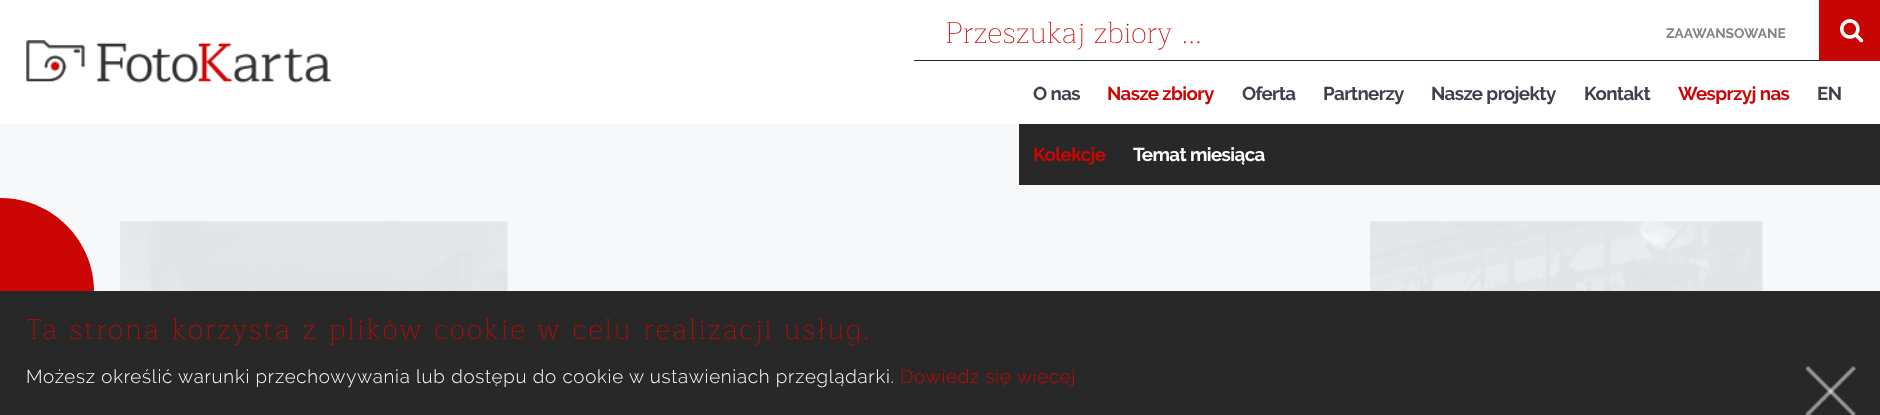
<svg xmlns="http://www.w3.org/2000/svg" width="1880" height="415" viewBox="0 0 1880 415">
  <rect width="100%" height="100%" fill="#f7f8fa"/>
  <rect x="0" y="0" width="1880" height="124" fill="#ffffff"/>
  <rect x="914" y="60" width="905" height="1" fill="#252525"/>
  <text x="945" y="43" font-family="Maitree" font-size="30" font-weight="200" fill="#d01717">Przeszukaj zbiory ...</text>
  <text x="1666" y="38" font-family="Raleway" font-size="13.75" font-weight="bold" fill="#848484">ZAAWANSOWANE</text>
  <rect x="1819" y="0" width="61" height="61" fill="#c70505"/>
  <image x="1840" y="19" width="24" height="24" href="img1.png"/>
  <image x="26" y="40" width="306" height="43" href="img2.png"/>
  <text x="1033" y="100" font-family="Raleway" font-size="18.75" font-weight="bold" letter-spacing="-0.6" fill="#3d414c">O nas</text>
  <text x="1107" y="100" font-family="Raleway" font-size="18.75" font-weight="bold" letter-spacing="-0.6" fill="#cc0505">Nasze zbiory</text>
  <rect x="1019" y="124" width="861" height="61" fill="#282828"/>
  <text x="1033" y="161" font-family="Raleway" font-size="18.75" font-weight="bold" letter-spacing="-0.6" fill="#cc0505">Kolekcje</text>
  <text x="1133" y="161" font-family="Raleway" font-size="18.75" font-weight="bold" letter-spacing="-0.6" fill="#ffffff">Temat miesiąca</text>
  <text x="1242" y="100" font-family="Raleway" font-size="18.75" font-weight="bold" letter-spacing="-0.6" fill="#3d414c">Oferta</text>
  <text x="1323" y="100" font-family="Raleway" font-size="18.75" font-weight="bold" letter-spacing="-0.6" fill="#3d414c">Partnerzy</text>
  <text x="1431" y="100" font-family="Raleway" font-size="18.75" font-weight="bold" letter-spacing="-0.6" fill="#3d414c">Nasze projekty</text>
  <text x="1584" y="100" font-family="Raleway" font-size="18.75" font-weight="bold" letter-spacing="-0.6" fill="#3d414c">Kontakt</text>
  <text x="1678" y="100" font-family="Raleway" font-size="18.75" font-weight="bold" letter-spacing="-0.6" fill="#cc0505">Wesprzyj nas</text>
  <text x="1817" y="100" font-family="Raleway" font-size="18.75" font-weight="bold" letter-spacing="-0.6" fill="#3d414c">EN</text>
  <path d="M0 198H.5C52 198 94 240 94 291.5C94 343 52 385 .5 385H0Z" fill="#cc0505"/>
  <image x="120" y="221" width="388" height="70" href="img3.png"/>
  <image x="1370" y="221" width="393" height="70" href="img4.png"/>
  <rect x="0" y="291" width="1880" height="124" fill="#282828"/>
  <text x="26" y="339" font-family="Maitree" font-size="28.75" font-weight="200" letter-spacing="2.12" fill="#cc0505">Ta strona korzysta z plików cookie w celu realizacji usług.</text>
  <text x="26" y="383" font-family="Raleway" font-size="18.75" font-weight="300" letter-spacing="0.75" fill="#ffffff">Możesz określić warunki przechowywania lub dostępu do cookie w ustawieniach przeglądarki.</text>
  <text x="900" y="383" font-family="Raleway" font-size="18.75" font-weight="300" letter-spacing="0.75" fill="#cc0505">Dowiedz się więcej</text>
  <image x="1805" y="365" width="52" height="50" href="img5.png"/>
</svg>
